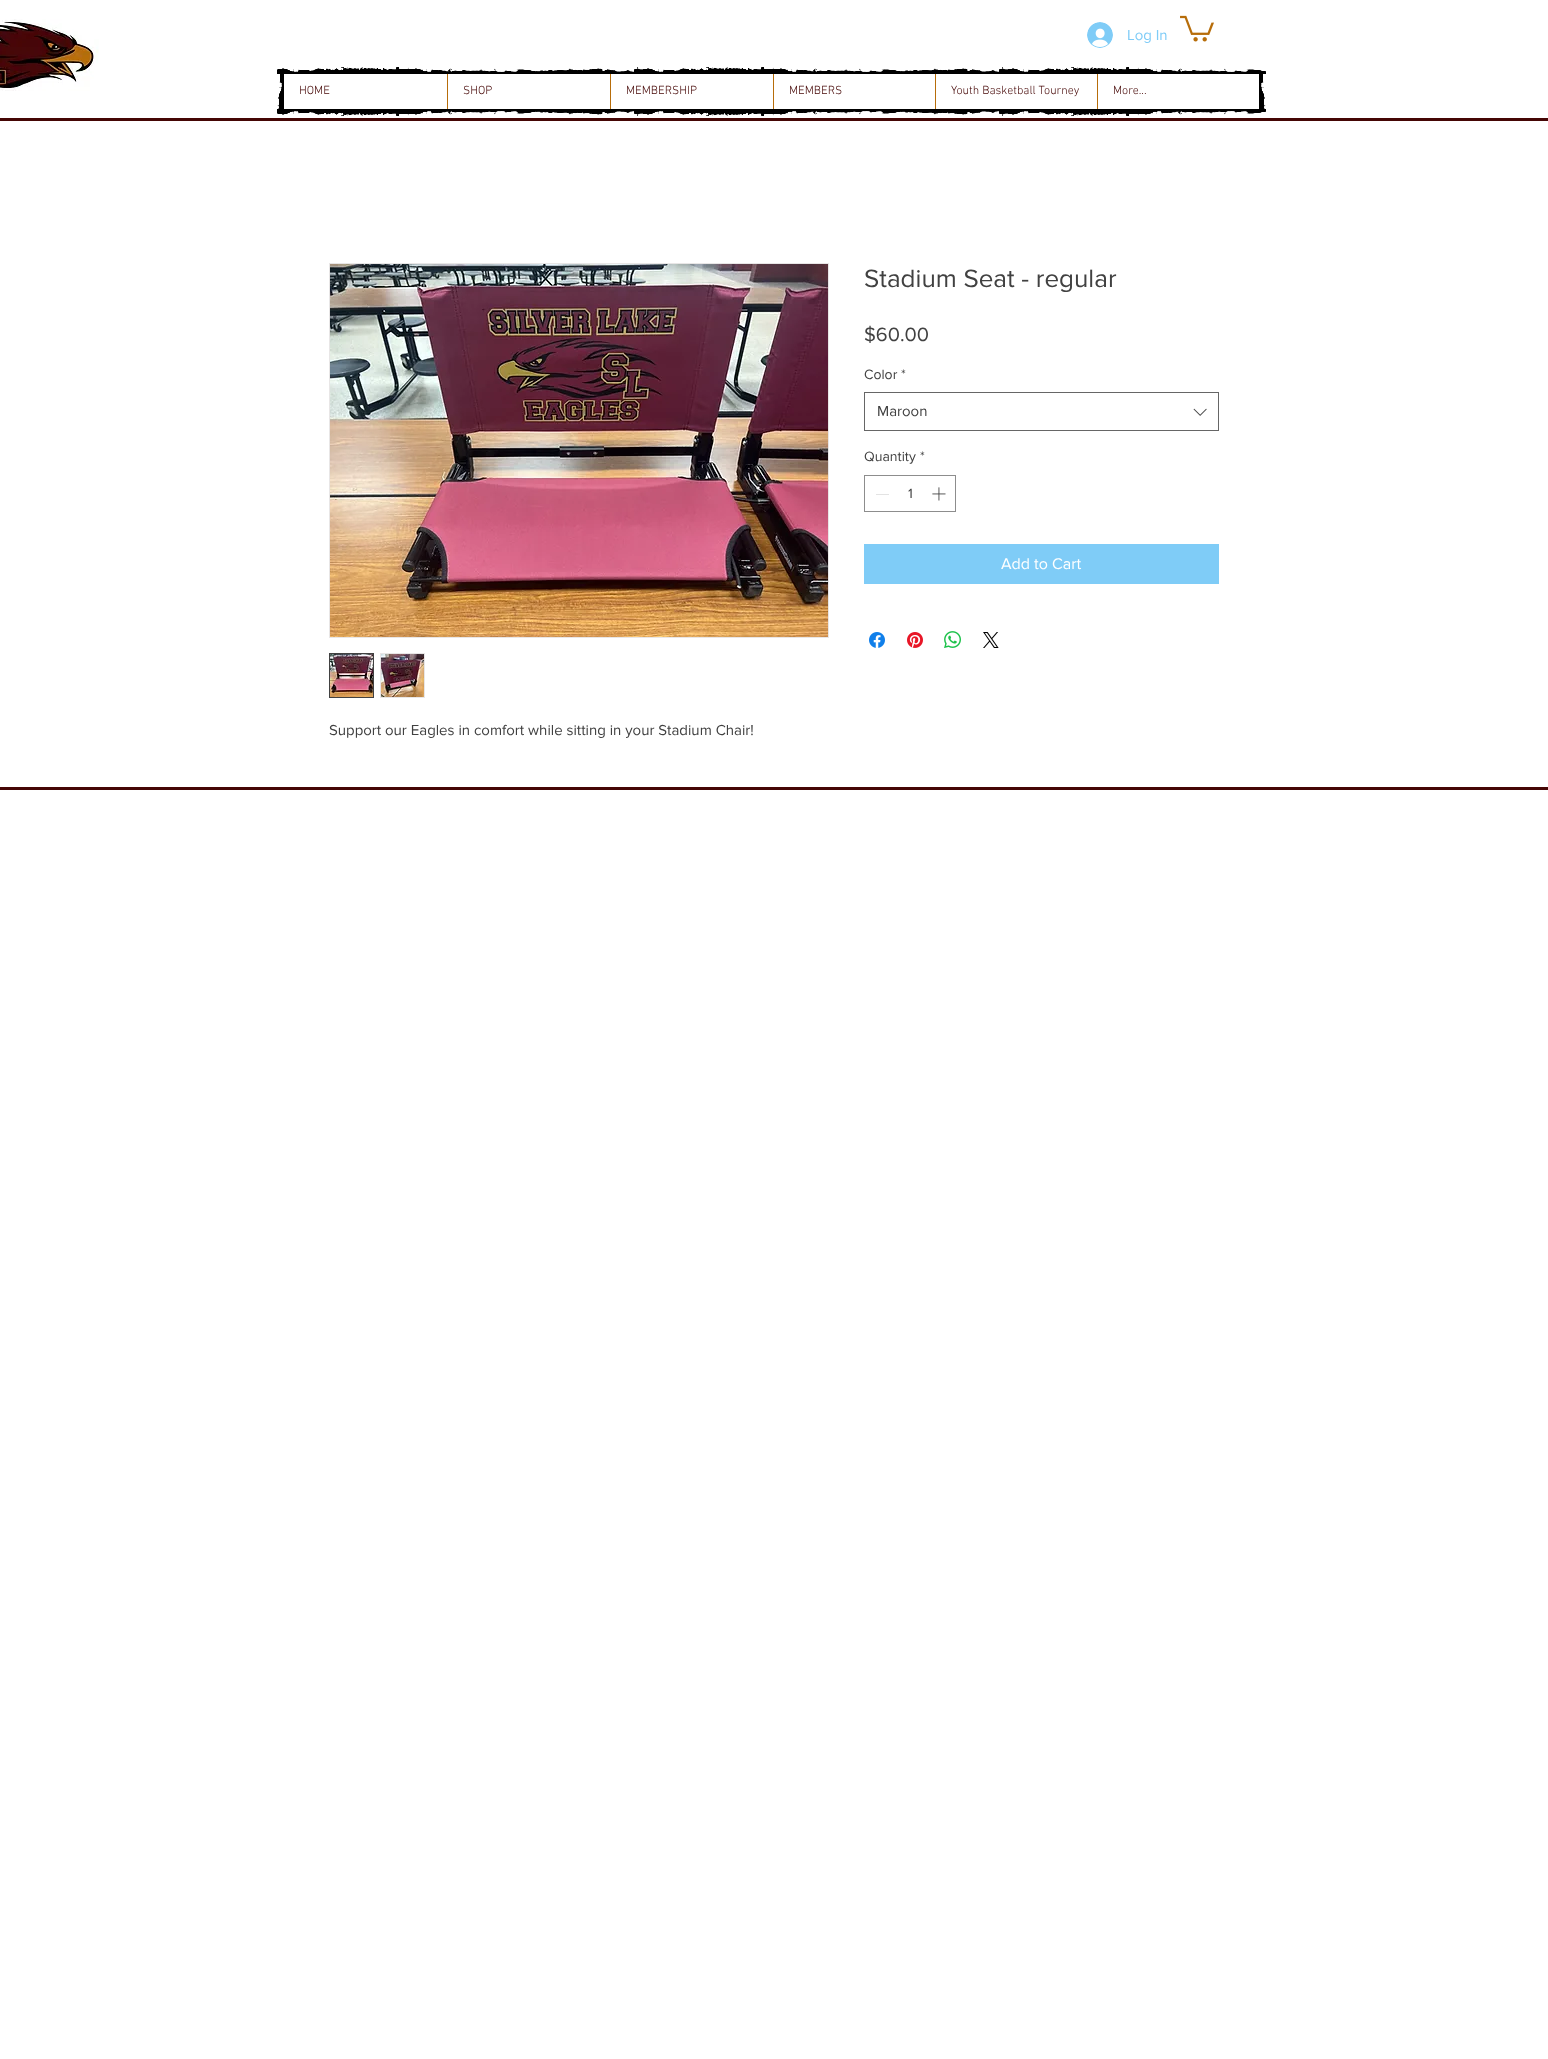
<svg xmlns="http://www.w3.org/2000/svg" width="1548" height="2059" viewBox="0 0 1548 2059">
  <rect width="100%" height="100%" fill="#ffffff"/>
  <image x="0" y="19" width="99" height="72" href="img1.png"/>
  <image x="1087" y="22" width="26" height="26" href="img2.png"/>
  <text x="1127" y="40" font-family="'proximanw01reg'" font-size="15" fill="#7fccf7">Log In</text>
  <image x="1180" y="15" width="34" height="27" href="img3.png"/>
  <image x="277" y="67" width="989" height="7" href="img4.png"/>
  <image x="277" y="74" width="7" height="35" href="img5.png"/>
  <text x="299" y="94" font-family="'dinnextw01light'" font-size="12" font-weight="300" fill="#450605">HOME</text>
  <rect x="447" y="74" width="1" height="35" fill="#b76d0a"/>
  <text x="463" y="94" font-family="'dinnextw01light'" font-size="12" font-weight="300" fill="#450605">SHOP</text>
  <rect x="610" y="74" width="1" height="35" fill="#b76d0a"/>
  <text x="626" y="94" font-family="'dinnextw01light'" font-size="12" font-weight="300" fill="#450605">MEMBERSHIP</text>
  <rect x="773" y="74" width="1" height="35" fill="#b76d0a"/>
  <text x="789" y="94" font-family="'dinnextw01light'" font-size="12" font-weight="300" fill="#450605">MEMBERS</text>
  <rect x="935" y="74" width="1" height="35" fill="#b76d0a"/>
  <text x="951" y="94" font-family="'dinnextw01light'" font-size="12" font-weight="300" fill="#450605">Youth Basketball Tourney</text>
  <rect x="1097" y="74" width="1" height="35" fill="#b76d0a"/>
  <text x="1113" y="94" font-family="'dinnextw01light'" font-size="12" font-weight="300" fill="#450605">More...</text>
  <image x="1259" y="74" width="7" height="35" href="img6.png"/>
  <image x="277" y="109" width="989" height="7" href="img7.png"/>
  <rect x="0" y="118" width="1548" height="3" fill="#450605"/>
  <text x="864" y="287" font-family="'proximanw01reg'" font-size="26" fill="#414141">Stadium Seat - regular</text>
  <text x="864" y="341" font-family="'proximanw01reg'" font-size="20" fill="#414141">$60.00</text>
  <text x="864" y="379" font-family="'proximanw01reg'" font-size="14" fill="#414141">Color</text>
  <text x="901" y="379" font-family="'proximanw01reg'" font-size="14" fill="#414141">*</text>
  <rect x="864.5" y="392.5" width="354" height="38" fill="none" stroke="#666666"/>
  <text x="877" y="416" font-family="'proximanw01reg'" font-size="15" fill="#414141">Maroon</text>
  <image x="1193" y="408" width="14" height="8" href="img8.png"/>
  <text x="864" y="461" font-family="'proximanw01reg'" font-size="14" fill="#414141">Quantity</text>
  <text x="920" y="461" font-family="'proximanw01reg'" font-size="14" fill="#414141">*</text>
  <rect x="864.5" y="475.5" width="91" height="36" fill="none" stroke="#8d8d8d"/>
  <rect x="876" y="494" width="13" height="1" fill="#e3e3e3"/>
  <text x="908" y="498" font-family="'proximanw01reg'" font-size="14" fill="#414141">1</text>
  <image x="932" y="487" width="14" height="14" href="img9.png"/>
  <rect x="864" y="544" width="355" height="40" fill="#7fccf7"/>
  <text x="1001" y="569" font-family="'proximanw01reg'" font-size="16" fill="#ffffff">Add to Cart</text>
  <image x="869" y="632" width="16" height="16" href="img10.png"/>
  <image x="907" y="632" width="16" height="16" href="img11.png"/>
  <image x="944" y="631" width="17" height="17" href="img12.png"/>
  <image x="983" y="632" width="16" height="16" href="img13.png"/>
  <rect x="329.5" y="263.5" width="499" height="374" fill="none" stroke="#e8e6e6"/>
  <image x="330" y="264" width="498" height="373" href="img14.png"/>
  <rect x="329.5" y="653.5" width="44" height="44" fill="none" stroke="#414141"/>
  <image x="330" y="654" width="43" height="43" href="img15.png"/>
  <rect x="380.5" y="653.5" width="44" height="44" fill="none" stroke="#e8e6e6"/>
  <image x="381" y="654" width="43" height="43" href="img16.png"/>
  <text x="329" y="735" font-family="'proximanw01reg'" font-size="15" fill="#414141">Support our Eagles in comfort while sitting in your Stadium Chair!</text>
  <rect x="0" y="787" width="1548" height="3" fill="#450605"/>
</svg>
